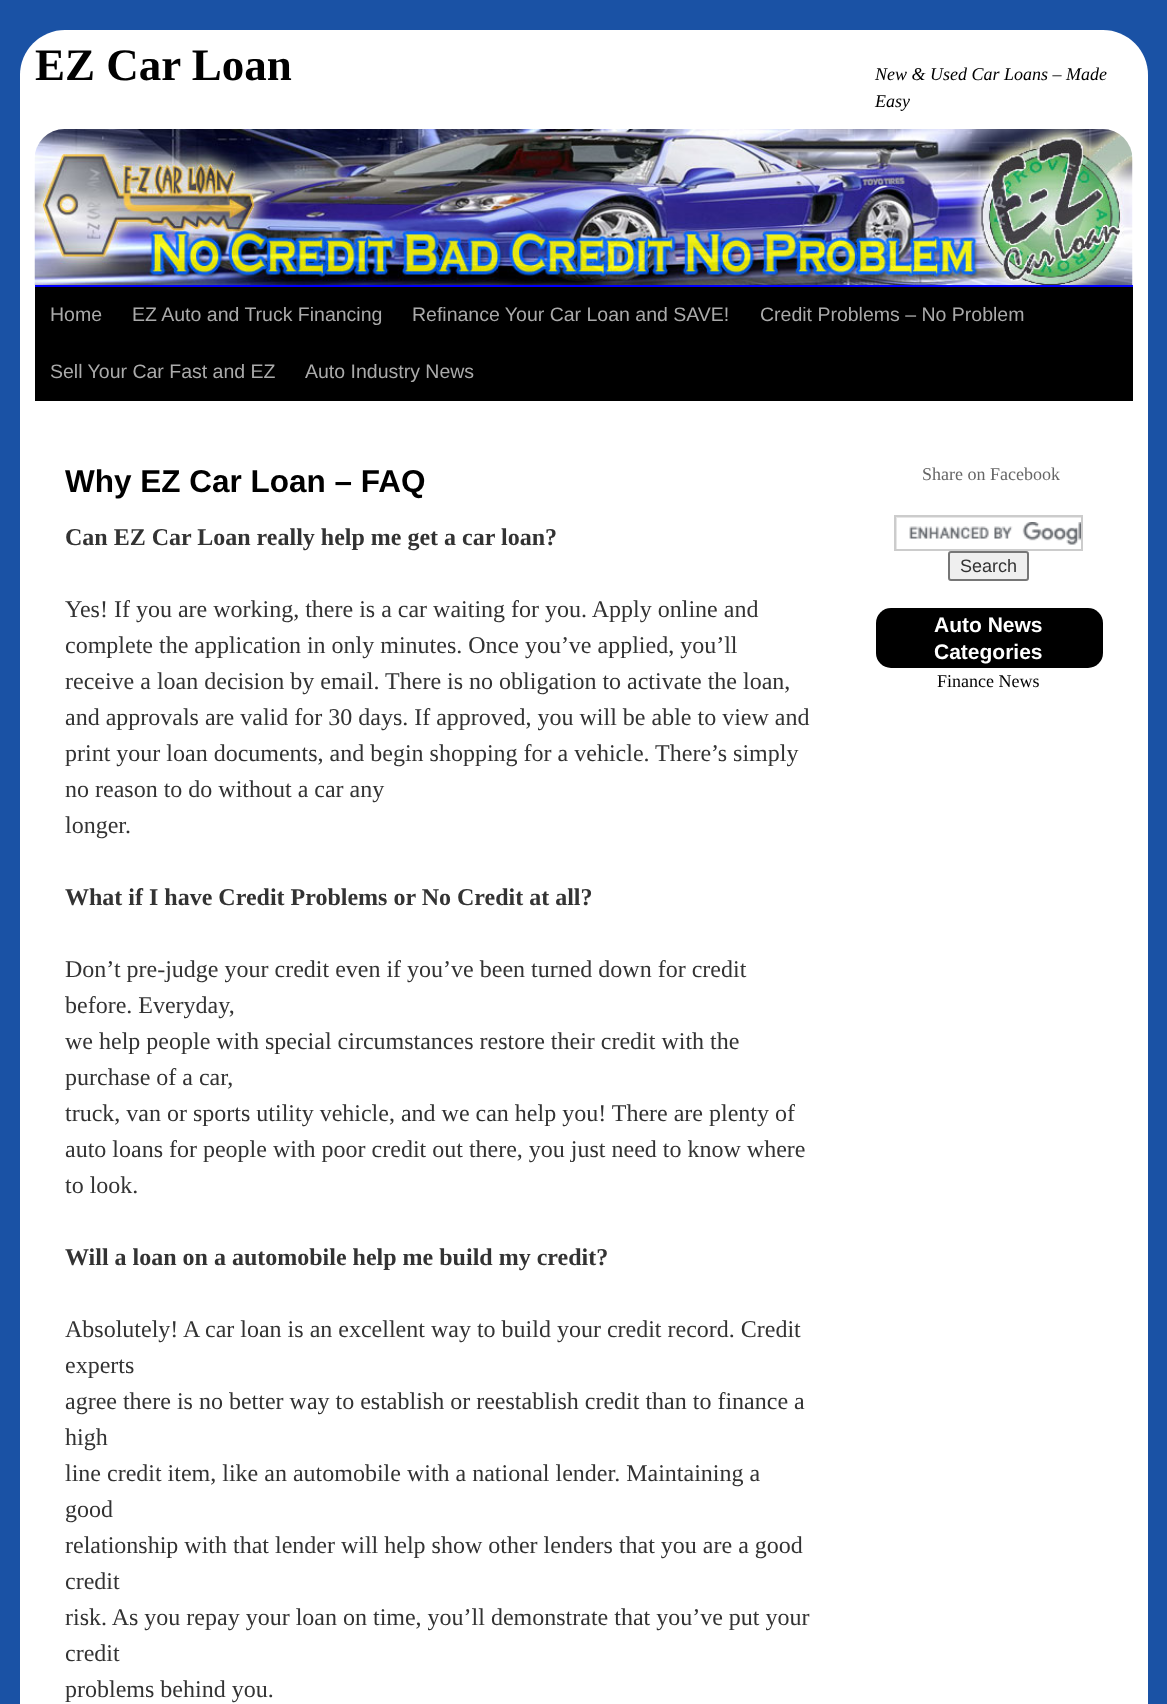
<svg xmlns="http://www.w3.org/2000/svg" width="1167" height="1704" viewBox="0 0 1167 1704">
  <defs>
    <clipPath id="clip1"><rect x="896" y="516" width="186" height="33"/></clipPath>
  </defs>
  <rect width="100%" height="100%" fill="#1a52a5"/>
  <rect x="20" y="30" width="1128" height="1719" rx="45" fill="#ffffff"/>
  <text x="35" y="80" font-family="Liberation Serif" font-size="45" font-weight="bold" fill="#000000">EZ Car Loan</text>
  <text x="875" y="80" font-family="Liberation Serif" font-size="18" font-style="italic" fill="#000000">New &amp; Used Car Loans – Made</text>
  <text x="875" y="107" font-family="Liberation Serif" font-size="18" font-style="italic" fill="#000000">Easy</text>
  <rect x="35" y="285" width="1098" height="2" fill="#0000ff"/>
  <image x="34" y="129" width="1099" height="156" href="img1.png"/>
  <rect x="35" y="287" width="1098" height="114" fill="#000000"/>
  <text x="50" y="321" font-family="Liberation Sans" font-size="19.5" fill="#aaaaaa">Home</text>
  <text x="132" y="321" font-family="Liberation Sans" font-size="19.5" fill="#aaaaaa">EZ Auto and Truck Financing</text>
  <text x="412" y="321" font-family="Liberation Sans" font-size="19.5" fill="#aaaaaa">Refinance Your Car Loan and SAVE!</text>
  <text x="760" y="321" font-family="Liberation Sans" font-size="19.5" fill="#aaaaaa">Credit Problems – No Problem</text>
  <text x="50" y="378" font-family="Liberation Sans" font-size="19.5" fill="#aaaaaa">Sell Your Car Fast and EZ</text>
  <text x="305" y="378" font-family="Liberation Sans" font-size="19.5" fill="#aaaaaa">Auto Industry News</text>
  <text x="65" y="492" font-family="Liberation Sans" font-size="31.5" font-weight="bold" fill="#000000">Why EZ Car Loan – FAQ</text>
  <text x="65" y="545" font-family="Liberation Serif" font-size="24" font-weight="bold" fill="#333333">Can EZ Car Loan really help me get a car loan?</text>
  <text x="65" y="617" font-family="Liberation Serif" font-size="24" fill="#333333">Yes! If you are working, there is a car waiting for you. Apply online and</text>
  <text x="65" y="653" font-family="Liberation Serif" font-size="24" fill="#333333">complete the application in only minutes. Once you’ve applied, you’ll</text>
  <text x="65" y="689" font-family="Liberation Serif" font-size="24" fill="#333333">receive a loan decision by email. There is no obligation to activate the loan,</text>
  <text x="65" y="725" font-family="Liberation Serif" font-size="24" fill="#333333">and approvals are valid for 30 days. If approved, you will be able to view and</text>
  <text x="65" y="761" font-family="Liberation Serif" font-size="24" fill="#333333">print your loan documents, and begin shopping for a vehicle. There’s simply</text>
  <text x="65" y="797" font-family="Liberation Serif" font-size="24" fill="#333333">no reason to do without a car any</text>
  <text x="65" y="833" font-family="Liberation Serif" font-size="24" fill="#333333">longer.</text>
  <text x="65" y="905" font-family="Liberation Serif" font-size="24" font-weight="bold" fill="#333333">What if I have Credit Problems or No Credit at all?</text>
  <text x="65" y="977" font-family="Liberation Serif" font-size="24" fill="#333333">Don’t pre-judge your credit even if you’ve been turned down for credit</text>
  <text x="65" y="1013" font-family="Liberation Serif" font-size="24" fill="#333333">before. Everyday,</text>
  <text x="65" y="1049" font-family="Liberation Serif" font-size="24" fill="#333333">we help people with special circumstances restore their credit with the</text>
  <text x="65" y="1085" font-family="Liberation Serif" font-size="24" fill="#333333">purchase of a car,</text>
  <text x="65" y="1121" font-family="Liberation Serif" font-size="24" fill="#333333">truck, van or sports utility vehicle, and we can help you! There are plenty of</text>
  <text x="65" y="1157" font-family="Liberation Serif" font-size="24" fill="#333333">auto loans for people with poor credit out there, you just need to know where</text>
  <text x="65" y="1193" font-family="Liberation Serif" font-size="24" fill="#333333">to look.</text>
  <text x="65" y="1265" font-family="Liberation Serif" font-size="24" font-weight="bold" fill="#333333">Will a loan on a automobile help me build my credit?</text>
  <text x="65" y="1337" font-family="Liberation Serif" font-size="24" fill="#333333">Absolutely! A car loan is an excellent way to build your credit record. Credit</text>
  <text x="65" y="1373" font-family="Liberation Serif" font-size="24" fill="#333333">experts</text>
  <text x="65" y="1409" font-family="Liberation Serif" font-size="24" fill="#333333">agree there is no better way to establish or reestablish credit than to finance a</text>
  <text x="65" y="1445" font-family="Liberation Serif" font-size="24" fill="#333333">high</text>
  <text x="65" y="1481" font-family="Liberation Serif" font-size="24" fill="#333333">line credit item, like an automobile with a national lender. Maintaining a</text>
  <text x="65" y="1517" font-family="Liberation Serif" font-size="24" fill="#333333">good</text>
  <text x="65" y="1553" font-family="Liberation Serif" font-size="24" fill="#333333">relationship with that lender will help show other lenders that you are a good</text>
  <text x="65" y="1589" font-family="Liberation Serif" font-size="24" fill="#333333">credit</text>
  <text x="65" y="1625" font-family="Liberation Serif" font-size="24" fill="#333333">risk. As you repay your loan on time, you’ll demonstrate that you’ve put your</text>
  <text x="65" y="1661" font-family="Liberation Serif" font-size="24" fill="#333333">credit</text>
  <text x="65" y="1697" font-family="Liberation Serif" font-size="24" fill="#333333">problems behind you.</text>
  <text x="922" y="480" font-family="Liberation Serif" font-size="18" fill="#666666">Share on Facebook</text>
  <image x="909" y="522" width="172" height="23" href="img2.png"/>
  <g clip-path="url(#clip1)">
    <path d="M747 368H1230V698H747ZM897 518H1083V550H897Z" fill="#e6e6e6" fill-rule="evenodd"/>
  </g>
  <rect x="895" y="516" width="187" height="34" fill="none" stroke="#cccccc" stroke-width="2"/>
  <rect x="949" y="552" width="79" height="28" rx="2" fill="#efefef" stroke="#767676" stroke-width="2"/>
  <text x="960" y="572" font-family="Liberation Sans" font-size="18" fill="#333333">Search</text>
  <rect x="876" y="608" width="227" height="60" rx="15" fill="#000000"/>
  <text x="934" y="632" font-family="Liberation Sans" font-size="21" font-weight="bold" fill="#ffffff">Auto News</text>
  <text x="934" y="659" font-family="Liberation Sans" font-size="21" font-weight="bold" fill="#ffffff">Categories</text>
  <text x="937" y="687" font-family="Liberation Serif" font-size="18" fill="#000000">Finance News</text>
</svg>
